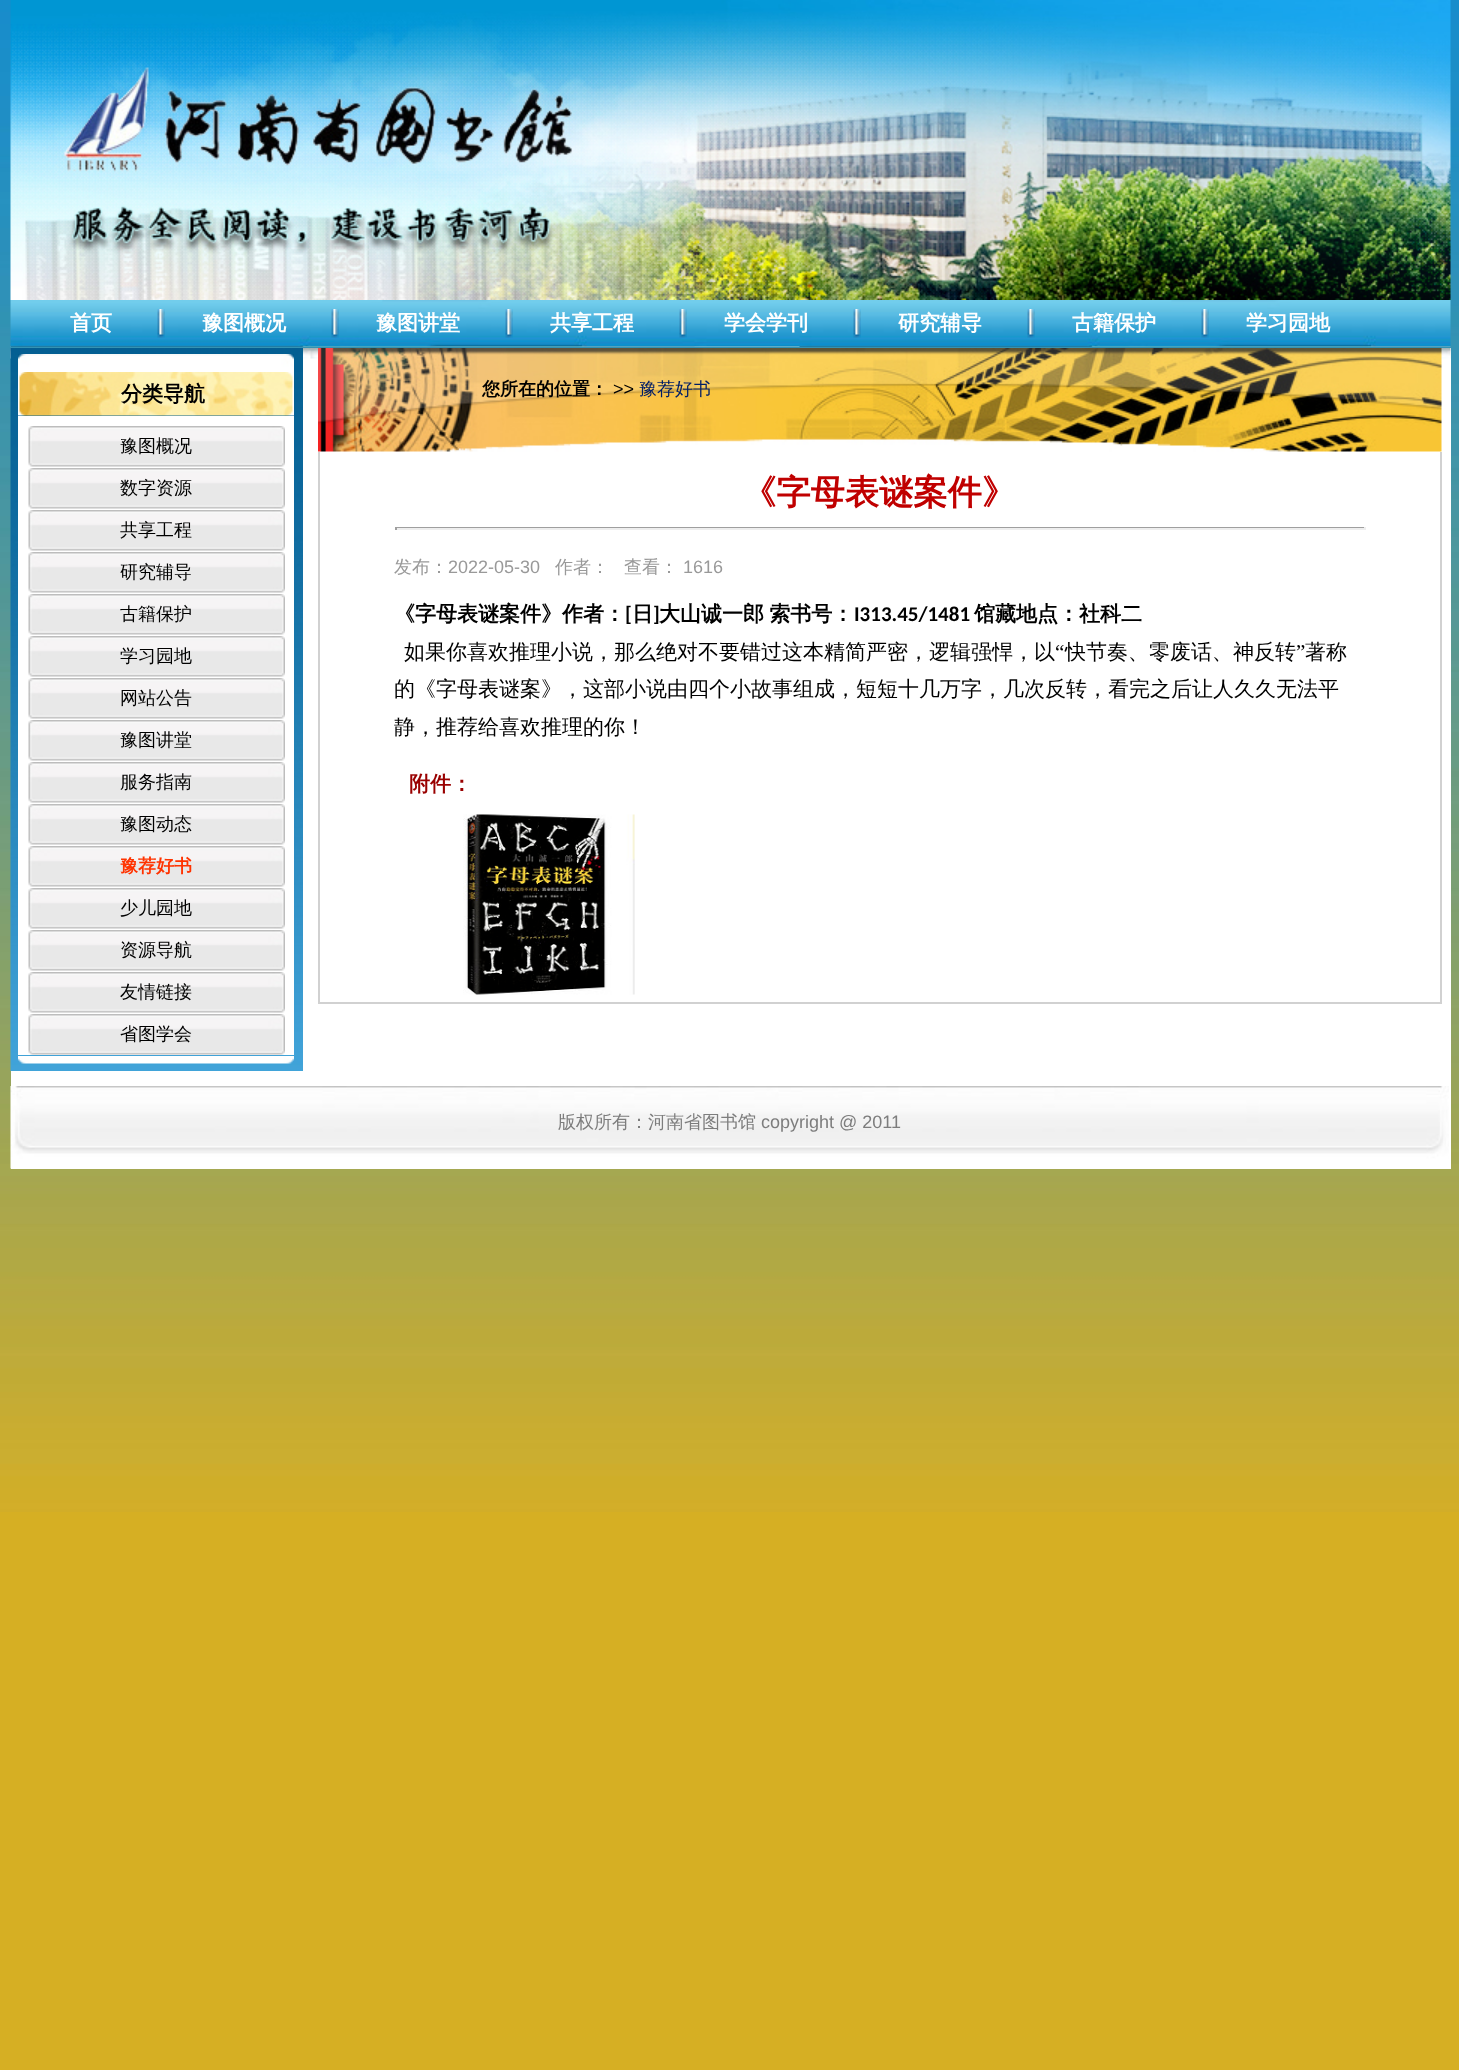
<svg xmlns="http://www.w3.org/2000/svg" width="1459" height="2070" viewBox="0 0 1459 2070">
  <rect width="100%" height="100%" fill="#d6af23"/>
  <image x="0" y="0" width="1459" height="1512" href="img1.png"/>
  <image x="10" y="0" width="1441" height="300" href="img2.png"/>
  <image x="10" y="300" width="1441" height="47" href="img3.png"/>
  <text x="70" y="330" font-family="WenQuanYi Zen Hei" font-size="21" font-weight="bold" fill="#ffffff">首页</text>
  <image x="157" y="309" width="8" height="29" href="img4.png"/>
  <text x="202" y="330" font-family="WenQuanYi Zen Hei" font-size="21" font-weight="bold" fill="#ffffff">豫图概况</text>
  <image x="331" y="309" width="8" height="29" href="img5.png"/>
  <text x="376" y="330" font-family="WenQuanYi Zen Hei" font-size="21" font-weight="bold" fill="#ffffff">豫图讲堂</text>
  <image x="505" y="309" width="8" height="29" href="img6.png"/>
  <text x="550" y="330" font-family="WenQuanYi Zen Hei" font-size="21" font-weight="bold" fill="#ffffff">共享工程</text>
  <image x="679" y="309" width="8" height="29" href="img7.png"/>
  <text x="724" y="330" font-family="WenQuanYi Zen Hei" font-size="21" font-weight="bold" fill="#ffffff">学会学刊</text>
  <image x="853" y="309" width="8" height="29" href="img8.png"/>
  <text x="898" y="330" font-family="WenQuanYi Zen Hei" font-size="21" font-weight="bold" fill="#ffffff">研究辅导</text>
  <image x="1027" y="309" width="8" height="29" href="img9.png"/>
  <text x="1072" y="330" font-family="WenQuanYi Zen Hei" font-size="21" font-weight="bold" fill="#ffffff">古籍保护</text>
  <image x="1201" y="309" width="8" height="29" href="img10.png"/>
  <text x="1246" y="330" font-family="WenQuanYi Zen Hei" font-size="21" font-weight="bold" fill="#ffffff">学习园地</text>
  <rect x="11" y="348" width="1440" height="821" fill="#ffffff"/>
  <image x="10" y="348" width="1441" height="11" href="img11.png"/>
  <image x="10" y="348" width="293" height="723" href="img12.png"/>
  <image x="18" y="354" width="276" height="18" href="img13.png"/>
  <image x="18" y="372" width="276" height="44" href="img14.png"/>
  <text x="121" y="401" font-family="WenQuanYi Zen Hei" font-size="21" font-weight="bold" fill="#000000">分类导航</text>
  <rect x="18" y="416" width="276" height="639" fill="#ffffff"/>
  <image x="28" y="426" width="257" height="41" href="img15.png"/>
  <text x="120" y="452" font-family="WenQuanYi Zen Hei" font-size="18" font-weight="500" fill="#000000">豫图概况</text>
  <image x="28" y="468" width="257" height="41" href="img15.png"/>
  <text x="120" y="494" font-family="WenQuanYi Zen Hei" font-size="18" font-weight="500" fill="#000000">数字资源</text>
  <image x="28" y="510" width="257" height="41" href="img15.png"/>
  <text x="120" y="536" font-family="WenQuanYi Zen Hei" font-size="18" font-weight="500" fill="#000000">共享工程</text>
  <image x="28" y="552" width="257" height="41" href="img15.png"/>
  <text x="120" y="578" font-family="WenQuanYi Zen Hei" font-size="18" font-weight="500" fill="#000000">研究辅导</text>
  <image x="28" y="594" width="257" height="41" href="img15.png"/>
  <text x="120" y="620" font-family="WenQuanYi Zen Hei" font-size="18" font-weight="500" fill="#000000">古籍保护</text>
  <image x="28" y="636" width="257" height="41" href="img15.png"/>
  <text x="120" y="662" font-family="WenQuanYi Zen Hei" font-size="18" font-weight="500" fill="#000000">学习园地</text>
  <image x="28" y="678" width="257" height="41" href="img15.png"/>
  <text x="120" y="704" font-family="WenQuanYi Zen Hei" font-size="18" font-weight="500" fill="#000000">网站公告</text>
  <image x="28" y="720" width="257" height="41" href="img15.png"/>
  <text x="120" y="746" font-family="WenQuanYi Zen Hei" font-size="18" font-weight="500" fill="#000000">豫图讲堂</text>
  <image x="28" y="762" width="257" height="41" href="img15.png"/>
  <text x="120" y="788" font-family="WenQuanYi Zen Hei" font-size="18" font-weight="500" fill="#000000">服务指南</text>
  <image x="28" y="804" width="257" height="41" href="img15.png"/>
  <text x="120" y="830" font-family="WenQuanYi Zen Hei" font-size="18" font-weight="500" fill="#000000">豫图动态</text>
  <image x="28" y="846" width="257" height="41" href="img15.png"/>
  <text x="120" y="872" font-family="WenQuanYi Zen Hei" font-size="18" font-weight="bold" fill="#ff3300">豫荐好书</text>
  <image x="28" y="888" width="257" height="41" href="img15.png"/>
  <text x="120" y="914" font-family="WenQuanYi Zen Hei" font-size="18" font-weight="500" fill="#000000">少儿园地</text>
  <image x="28" y="930" width="257" height="41" href="img15.png"/>
  <text x="120" y="956" font-family="WenQuanYi Zen Hei" font-size="18" font-weight="500" fill="#000000">资源导航</text>
  <image x="28" y="972" width="257" height="41" href="img15.png"/>
  <text x="120" y="998" font-family="WenQuanYi Zen Hei" font-size="18" font-weight="500" fill="#000000">友情链接</text>
  <image x="28" y="1014" width="257" height="41" href="img15.png"/>
  <text x="120" y="1040" font-family="WenQuanYi Zen Hei" font-size="18" font-weight="500" fill="#000000">省图学会</text>
  <image x="18" y="1056" width="276" height="8" href="img16.png"/>
  <image x="318" y="348" width="1124" height="104" href="img17.png"/>
  <text x="482" y="395" font-family="WenQuanYi Zen Hei" font-size="18" font-weight="bold" fill="#000000">您所在的位置：</text>
  <text x="613" y="395" font-family="Liberation Sans" font-size="18" fill="#000000">&gt;&gt;</text>
  <text x="639" y="395" font-family="WenQuanYi Zen Hei" font-size="18" font-weight="500" fill="#001d66">豫荐好书</text>
  <rect x="1440" y="452" width="2" height="552" fill="#d1d1d1"/>
  <rect x="318" y="1002" width="1124" height="2" fill="#d1d1d1"/>
  <rect x="318" y="452" width="2" height="552" fill="#d1d1d1"/>
  <text x="742" y="504" font-family="WenQuanYi Zen Hei" font-size="34.25" font-weight="bold" fill="#c00000">《字母表谜案件》</text>
  <rect x="395" y="527" width="970" height="1" fill="#9f9f9f"/>
  <rect x="1364" y="527" width="2" height="3" fill="#eeeeee"/>
  <rect x="395" y="528" width="970" height="2" fill="#eeeeee"/>
  <rect x="395" y="527" width="2" height="3" fill="#9f9f9f"/>
  <text x="394" y="573" font-family="WenQuanYi Zen Hei" font-size="18" font-weight="500" fill="#999999">发布：</text>
  <text x="448" y="573" font-family="Liberation Sans" font-size="18" fill="#999999">2022-05-30</text>
  <text x="555" y="573" font-family="WenQuanYi Zen Hei" font-size="18" font-weight="500" fill="#999999">作者：</text>
  <text x="624" y="573" font-family="WenQuanYi Zen Hei" font-size="18" font-weight="500" fill="#999999">查看：</text>
  <text x="683" y="573" font-family="Liberation Sans" font-size="18" fill="#999999">1616</text>
  <text x="394" y="621" font-family="WenQuanYi Zen Hei" font-size="21" font-weight="bold" fill="#000000">《字母表谜案件》作者：</text>
  <text x="625" y="621" font-family="Carlito" font-size="21" font-weight="bold" fill="#000000">[</text>
  <text x="632" y="621" font-family="WenQuanYi Zen Hei" font-size="21" font-weight="bold" fill="#000000">日</text>
  <text x="653" y="621" font-family="Carlito" font-size="21" font-weight="bold" fill="#000000">]</text>
  <text x="659" y="621" word-spacing="-1" font-family="WenQuanYi Zen Hei" font-size="21" font-weight="bold" fill="#000000">大山诚一郎 索书号：</text>
  <text x="854" y="621" font-family="Carlito" font-size="21" font-weight="bold" fill="#000000">I313.45/1481</text>
  <text x="974" y="621" font-family="WenQuanYi Zen Hei" font-size="21" font-weight="bold" fill="#000000">馆藏地点：社科二</text>
  <text x="404" y="659" font-family="WenQuanYi Zen Hei" font-size="21" font-weight="500" fill="#000000">如果你喜欢推理小说，那么绝对不要错过这本精简严密，逻辑强悍，以</text>
  <text x="1055" y="659" font-family="Liberation Serif" font-size="21" fill="#000000">“</text>
  <text x="1065" y="659" font-family="WenQuanYi Zen Hei" font-size="21" font-weight="500" fill="#000000">快节奏、零废话、神反转</text>
  <text x="1296" y="659" font-family="Liberation Serif" font-size="21" fill="#000000">”</text>
  <text x="1305" y="659" font-family="WenQuanYi Zen Hei" font-size="21" font-weight="500" fill="#000000">著称</text>
  <text x="394" y="696" font-family="WenQuanYi Zen Hei" font-size="21" font-weight="500" fill="#000000">的《字母表谜案》，这部小说由四个小故事组成，短短十几万字，几次反转，看完之后让人久久无法平</text>
  <text x="394" y="734" font-family="WenQuanYi Zen Hei" font-size="21" font-weight="500" fill="#000000">静，推荐给喜欢推理的你！</text>
  <text x="409" y="791" font-family="WenQuanYi Zen Hei" font-size="21" font-weight="bold" fill="#990000">附件：</text>
  <image x="463" y="814" width="172" height="181" href="img18.png"/>
  <image x="10" y="1086" width="1439" height="83" href="img19.png"/>
  <text x="558" y="1128" font-family="WenQuanYi Zen Hei" font-size="18" font-weight="500" fill="#7d7d7d">版权所有：河南省图书馆</text>
  <text x="761" y="1128" font-family="Liberation Sans" font-size="18" fill="#7d7d7d">copyright @ 2011</text>
</svg>
